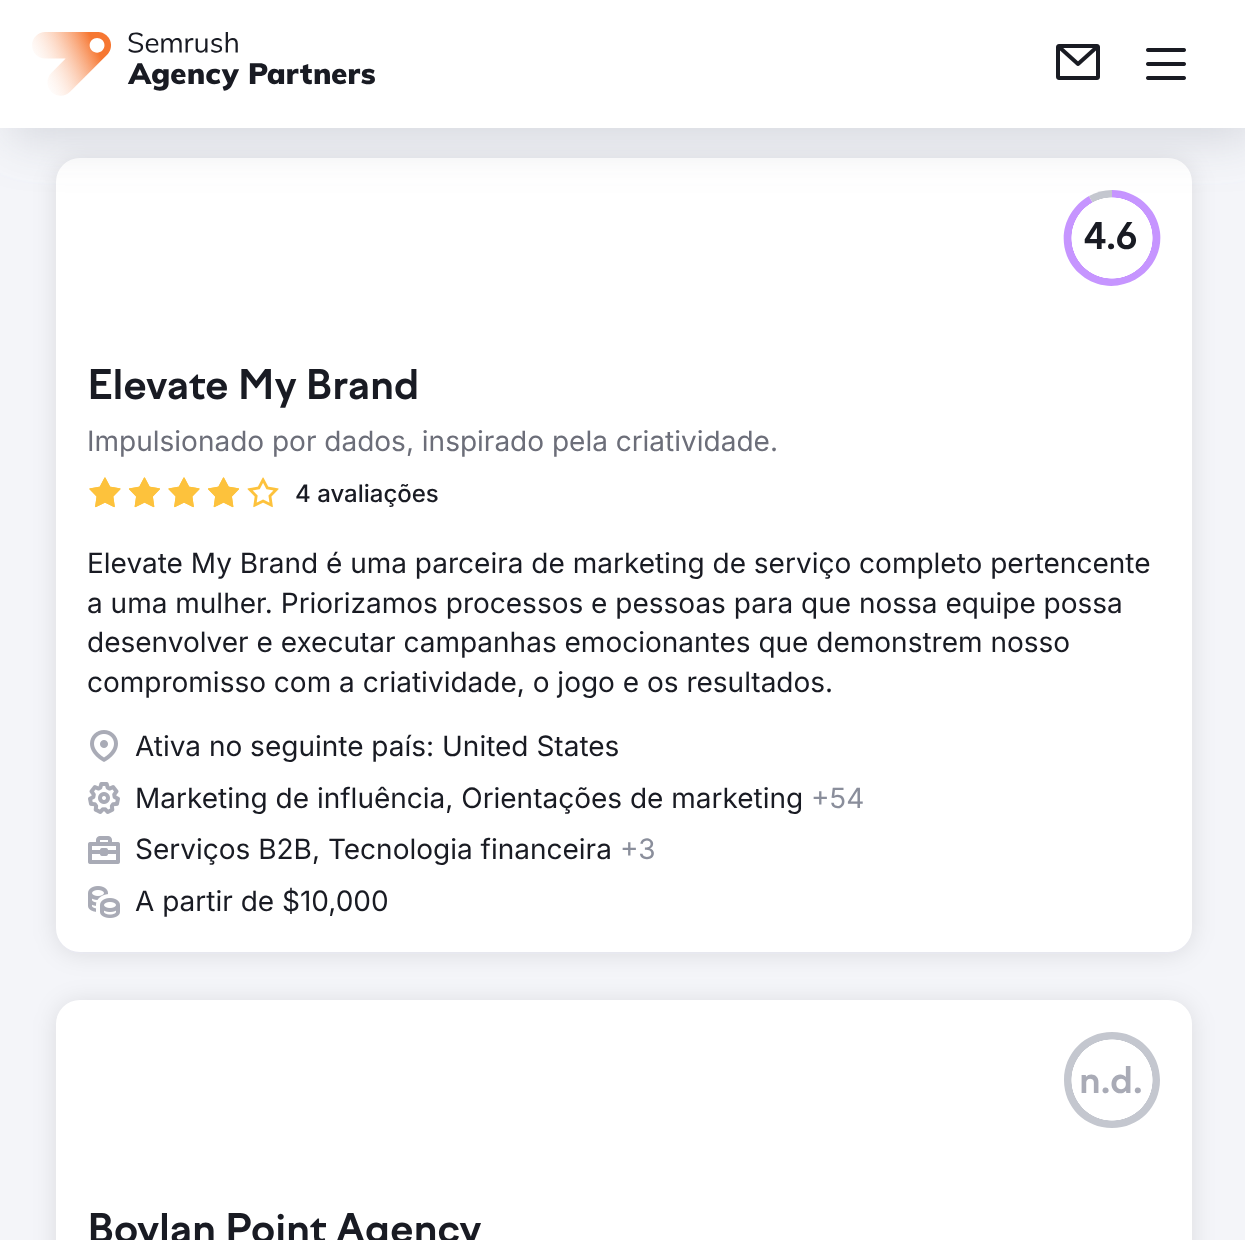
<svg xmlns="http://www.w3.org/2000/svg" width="1245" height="1240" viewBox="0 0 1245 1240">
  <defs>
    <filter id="blur1" x="-50%" y="-200%" width="200%" height="500%"><feGaussianBlur stdDeviation="12"/></filter>
    <radialGradient id="g1" gradientUnits="userSpaceOnUse" cx="1112" cy="238" r="48"><stop offset="0.84" stop-color="#ffffff"/><stop offset="0.85" stop-color="#ffffff" stop-opacity="0"/><stop offset="1" stop-color="#000000" stop-opacity="0"/></radialGradient>
    <filter id="blur2" x="-50%" y="-200%" width="200%" height="500%"><feGaussianBlur stdDeviation="25"/></filter>
    <radialGradient id="g2" gradientUnits="userSpaceOnUse" cx="1112" cy="1080" r="48"><stop offset="0.84" stop-color="#ffffff"/><stop offset="0.85" stop-color="#ffffff" stop-opacity="0"/><stop offset="1" stop-color="#000000" stop-opacity="0"/></radialGradient>
  </defs>
  <rect width="100%" height="100%" fill="#f4f5f9"/>
  <rect x="56" y="160" width="1136" height="794" rx="24" fill="#191b23" fill-opacity="0.1" filter="url(#blur1)"/>
  <rect x="56" y="158" width="1136" height="794" rx="24" fill="#ffffff"/>
  <path d="M1112 238V190C1136 190 1157 208 1160 232C1163 256 1147 278 1124 284C1101 291 1076 278 1067 256C1058 233 1068 208 1089 196Z" fill="#c695ff"/>
  <path d="M1112 238L1089 196C1096 192 1104 190 1112 190Z" fill="#c4c7cf"/>
  <rect x="1071" y="197" width="82" height="82" fill="url(#g1)"/>
  <rect x="10" y="10" width="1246" height="128" fill="#898d9a" fill-opacity="0.3" filter="url(#blur2)"/>
  <rect x="0" y="0" width="1245" height="128" fill="#ffffff"/>
  <image x="32" y="32" width="343" height="64" href="img1.png"/>
  <image x="1056" y="44" width="44" height="36" href="img2.png"/>
  <image x="1146" y="48" width="40" height="32" href="img3.png"/>
  <text x="1084" y="249" font-family="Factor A" font-size="36" font-weight="bold" fill="#191b23">4.6</text>
  <text x="87" y="399" font-family="Factor A" font-size="40" font-weight="bold" fill="#191b23">Elevate My Brand</text>
  <text x="87" y="451" font-family="Inter" font-size="28" fill="#6c6e79">Impulsionado por dados, inspirado pela criatividade.</text>
  <image x="89" y="477" width="190" height="31" href="img4.png"/>
  <text x="295" y="502" font-family="Inter" font-size="24" font-weight="500" fill="#191b23">4 avaliações</text>
  <text x="87" y="573" font-family="Inter" font-size="28" fill="#191b23">Elevate My Brand é uma parceira de marketing de serviço completo pertencente</text>
  <text x="87" y="613" font-family="Inter" font-size="28" fill="#191b23">a uma mulher. Priorizamos processos e pessoas para que nossa equipe possa</text>
  <text x="87" y="652" font-family="Inter" font-size="28" fill="#191b23">desenvolver e executar campanhas emocionantes que demonstrem nosso</text>
  <text x="87" y="692" font-family="Inter" font-size="28" fill="#191b23">compromisso com a criatividade, o jogo e os resultados.</text>
  <image x="90" y="730" width="28" height="32" href="img5.png"/>
  <text x="135" y="756" font-family="Inter" font-size="28" fill="#191b23">Ativa no seguinte país: United States</text>
  <image x="88" y="782" width="32" height="32" href="img6.png"/>
  <text x="135" y="808" font-family="Inter" font-size="28" fill="#191b23">Marketing de influência, Orientações de marketing</text>
  <text x="811" y="808" font-family="Inter" font-size="28" fill="#8a8e9b">+54</text>
  <image x="88" y="836" width="32" height="28" href="img7.png"/>
  <text x="135" y="859" font-family="Inter" font-size="28" fill="#191b23">Serviços B2B, Tecnologia financeira</text>
  <text x="620" y="859" font-family="Inter" font-size="28" fill="#8a8e9b">+3</text>
  <image x="88" y="886" width="32" height="32" href="img8.png"/>
  <text x="135" y="911" font-family="Inter" font-size="28" fill="#191b23">A partir de $10,000</text>
  <rect x="56" y="1002" width="1136" height="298" rx="24" fill="#191b23" fill-opacity="0.1" filter="url(#blur1)"/>
  <rect x="56" y="1000" width="1136" height="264" rx="24" fill="#ffffff"/>
  <path d="M1112 1080V1032C1139 1032 1160 1053 1160 1080C1160 1107 1139 1128 1112 1128C1085 1128 1064 1107 1064 1080C1064 1053 1085 1032 1112 1032Z" fill="#c4c7cf"/>
  <rect x="1071" y="1039" width="82" height="82" fill="url(#g2)"/>
  <text x="1079" y="1093" font-family="Factor A" font-size="36" font-weight="bold" fill="#a9abb6">n.d.</text>
  <text x="87" y="1243" font-family="Factor A" font-size="40" font-weight="bold" fill="#191b23">Boylan Point Agency</text>
</svg>
